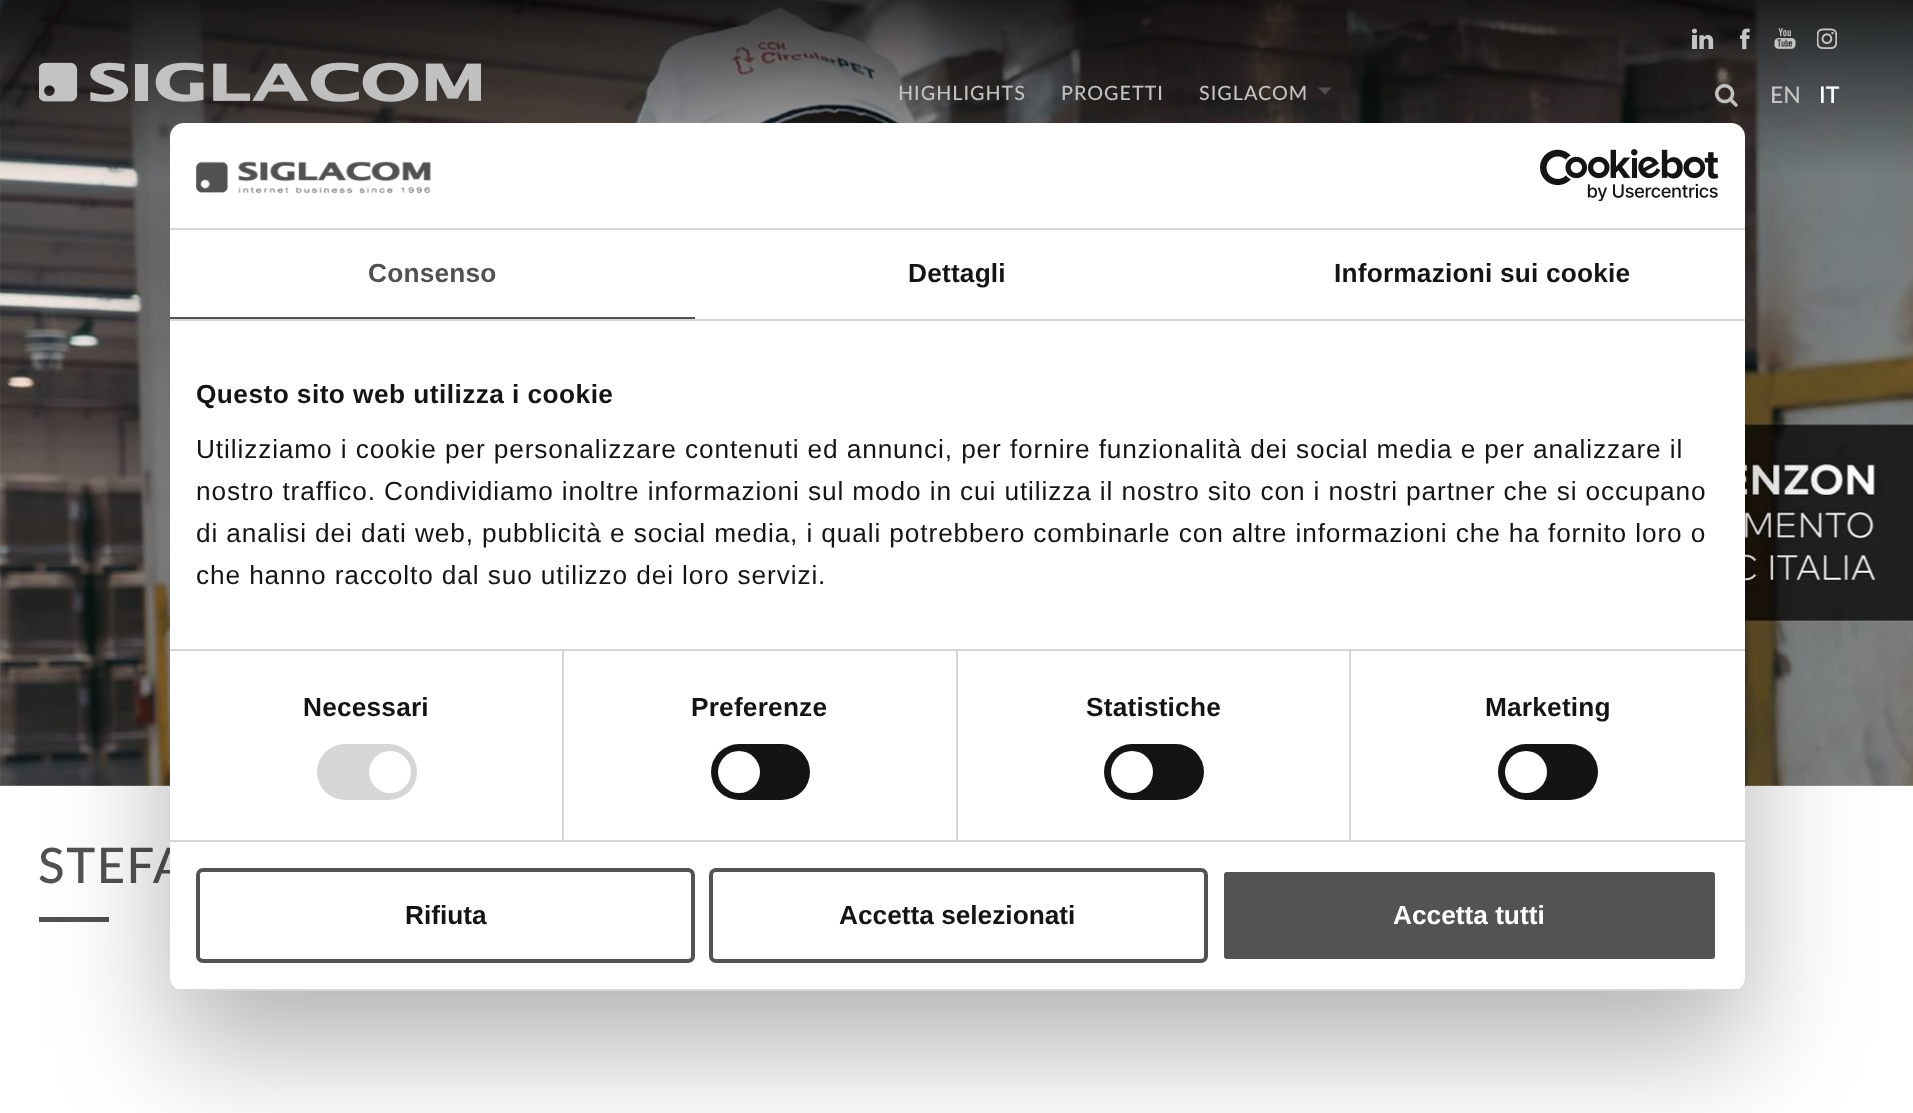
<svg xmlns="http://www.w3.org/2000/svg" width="1913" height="1113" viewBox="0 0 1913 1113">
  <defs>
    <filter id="blur1" x="-50%" y="-200%" width="200%" height="500%"><feGaussianBlur stdDeviation="59.5"/></filter>
    <clipPath id="clip1"><rect x="170" y="123" width="1575" height="868" rx="14"/></clipPath>
  </defs>
  <rect width="100%" height="100%" fill="#ffffff"/>
  <image x="0" y="0" width="1913" height="786" href="img1.png"/>
  <text x="898" y="100" font-family="Lato" font-size="19.75" font-weight="500" letter-spacing="1" fill="#c5c5c5">HIGHLIGHTS</text>
  <text x="1061" y="100" font-family="Lato" font-size="19.75" font-weight="500" letter-spacing="1" fill="#c5c5c5">PROGETTI</text>
  <text x="1199" y="100" font-family="Lato" font-size="19.75" font-weight="500" letter-spacing="1" fill="#c5c5c5">SIGLACOM</text>
  <path d="M1318 87.5H1332L1325 94.5Z" fill="#515151"/>
  <image x="1692" y="28" width="22" height="21" href="img2.png"/>
  <image x="1740" y="28" width="10" height="22" href="img3.png"/>
  <image x="1774" y="28" width="22" height="21" href="img4.png"/>
  <image x="1817" y="28" width="20" height="21" href="img5.png"/>
  <image x="39" y="62" width="442" height="40" href="img6.png"/>
  <image x="1715" y="84" width="23" height="23" href="img7.png"/>
  <text x="1770" y="103" font-family="Lato" font-size="23" font-weight="500" fill="#c5c5c5">EN</text>
  <text x="1819" y="103" font-family="Lato" font-size="23" font-weight="600" fill="#ffffff">IT</text>
  <text x="38" y="883" font-family="Lato" font-size="49" font-weight="500" letter-spacing="1.5" fill="#515151">STEFA</text>
  <rect x="39" y="917" width="70" height="5" fill="#515151"/>
  <rect x="170" y="179" width="1575" height="868" rx="14" fill="#000000" fill-opacity="0.3" filter="url(#blur1)"/>
  <rect x="170" y="123" width="1575" height="868" rx="14" fill="#ffffff"/>
  <rect x="170" y="228" width="1575" height="2" fill="#d6d6d6"/>
  <image x="196" y="161" width="235" height="33" href="img8.png"/>
  <image x="1540" y="149" width="179" height="52" href="img9.png"/>
  <rect x="170" y="319" width="1575" height="2" fill="#d6d6d6"/>
  <rect x="170" y="317" width="525" height="2" fill="#535353"/>
  <text x="368" y="282" font-family="Liberation Sans" font-size="26.25" font-weight="bold" letter-spacing="0.2" fill="#515151">Consenso</text>
  <text x="908" y="282" font-family="Liberation Sans" font-size="26.25" font-weight="bold" letter-spacing="0.2" fill="#141414">Dettagli</text>
  <text x="1334" y="282" font-family="Liberation Sans" font-size="26.25" font-weight="bold" letter-spacing="0.2" fill="#141414">Informazioni sui cookie</text>
  <rect x="170" y="649" width="1575" height="2" fill="#d6d6d6"/>
  <text x="196" y="403" font-family="Liberation Sans" font-size="26.25" font-weight="bold" letter-spacing="0.45" fill="#141414">Questo sito web utilizza i cookie</text>
  <text x="196" y="458" font-family="Liberation Sans" font-size="26.25" letter-spacing="0.88" fill="#141414">Utilizziamo i cookie per personalizzare contenuti ed annunci, per fornire funzionalità dei social media e per analizzare il</text>
  <text x="196" y="500" font-family="Liberation Sans" font-size="26.25" letter-spacing="0.88" fill="#141414">nostro traffico. Condividiamo inoltre informazioni sul modo in cui utilizza il nostro sito con i nostri partner che si occupano</text>
  <text x="196" y="542" font-family="Liberation Sans" font-size="26.25" letter-spacing="0.88" fill="#141414">di analisi dei dati web, pubblicità e social media, i quali potrebbero combinarle con altre informazioni che ha fornito loro o</text>
  <text x="196" y="584" font-family="Liberation Sans" font-size="26.25" letter-spacing="0.88" fill="#141414">che hanno raccolto dal suo utilizzo dei loro servizi.</text>
  <rect x="170" y="840" width="1575" height="2" fill="#d6d6d6"/>
  <rect x="562" y="651" width="2" height="189" fill="#d6d6d6"/>
  <text x="303" y="716" font-family="Liberation Sans" font-size="26.25" font-weight="bold" letter-spacing="0.2" fill="#141414">Necessari</text>
  <rect x="317" y="744" width="100" height="56" rx="28" fill="#d6d6d6"/>
  <circle cx="390" cy="772" r="21" fill="#ffffff"/>
  <rect x="956" y="651" width="2" height="189" fill="#d6d6d6"/>
  <text x="691" y="716" font-family="Liberation Sans" font-size="26.25" font-weight="bold" letter-spacing="0.2" fill="#141414">Preferenze</text>
  <rect x="711" y="744" width="99" height="56" rx="28" fill="#141414"/>
  <circle cx="739" cy="772" r="21" fill="#ffffff"/>
  <rect x="1349" y="651" width="2" height="189" fill="#d6d6d6"/>
  <text x="1086" y="716" font-family="Liberation Sans" font-size="26.25" font-weight="bold" letter-spacing="0.2" fill="#141414">Statistiche</text>
  <rect x="1104" y="744" width="100" height="56" rx="28" fill="#141414"/>
  <circle cx="1132" cy="772" r="21" fill="#ffffff"/>
  <text x="1485" y="716" font-family="Liberation Sans" font-size="26.25" font-weight="bold" letter-spacing="0.2" fill="#141414">Marketing</text>
  <rect x="1498" y="744" width="100" height="56" rx="28" fill="#141414"/>
  <circle cx="1526" cy="772" r="21" fill="#ffffff"/>
  <g clip-path="url(#clip1)">
    <rect x="170" y="989" width="1575" height="2" fill="#d6d6d6"/>
  </g>
  <rect x="198" y="870" width="495" height="91" rx="5" fill="none" stroke="#535353" stroke-width="4"/>
  <text x="405" y="924" font-family="Liberation Sans" font-size="26.25" font-weight="bold" fill="#141414">Rifiuta</text>
  <rect x="711" y="870" width="495" height="91" rx="5" fill="none" stroke="#535353" stroke-width="4"/>
  <text x="839" y="924" font-family="Liberation Sans" font-size="26.25" font-weight="bold" fill="#141414">Accetta selezionati</text>
  <rect x="1222" y="870" width="495" height="91" rx="5" fill="#535353" stroke="#ffffff" stroke-width="4"/>
  <text x="1393" y="924" font-family="Liberation Sans" font-size="26.25" font-weight="bold" fill="#ffffff">Accetta tutti</text>
</svg>
